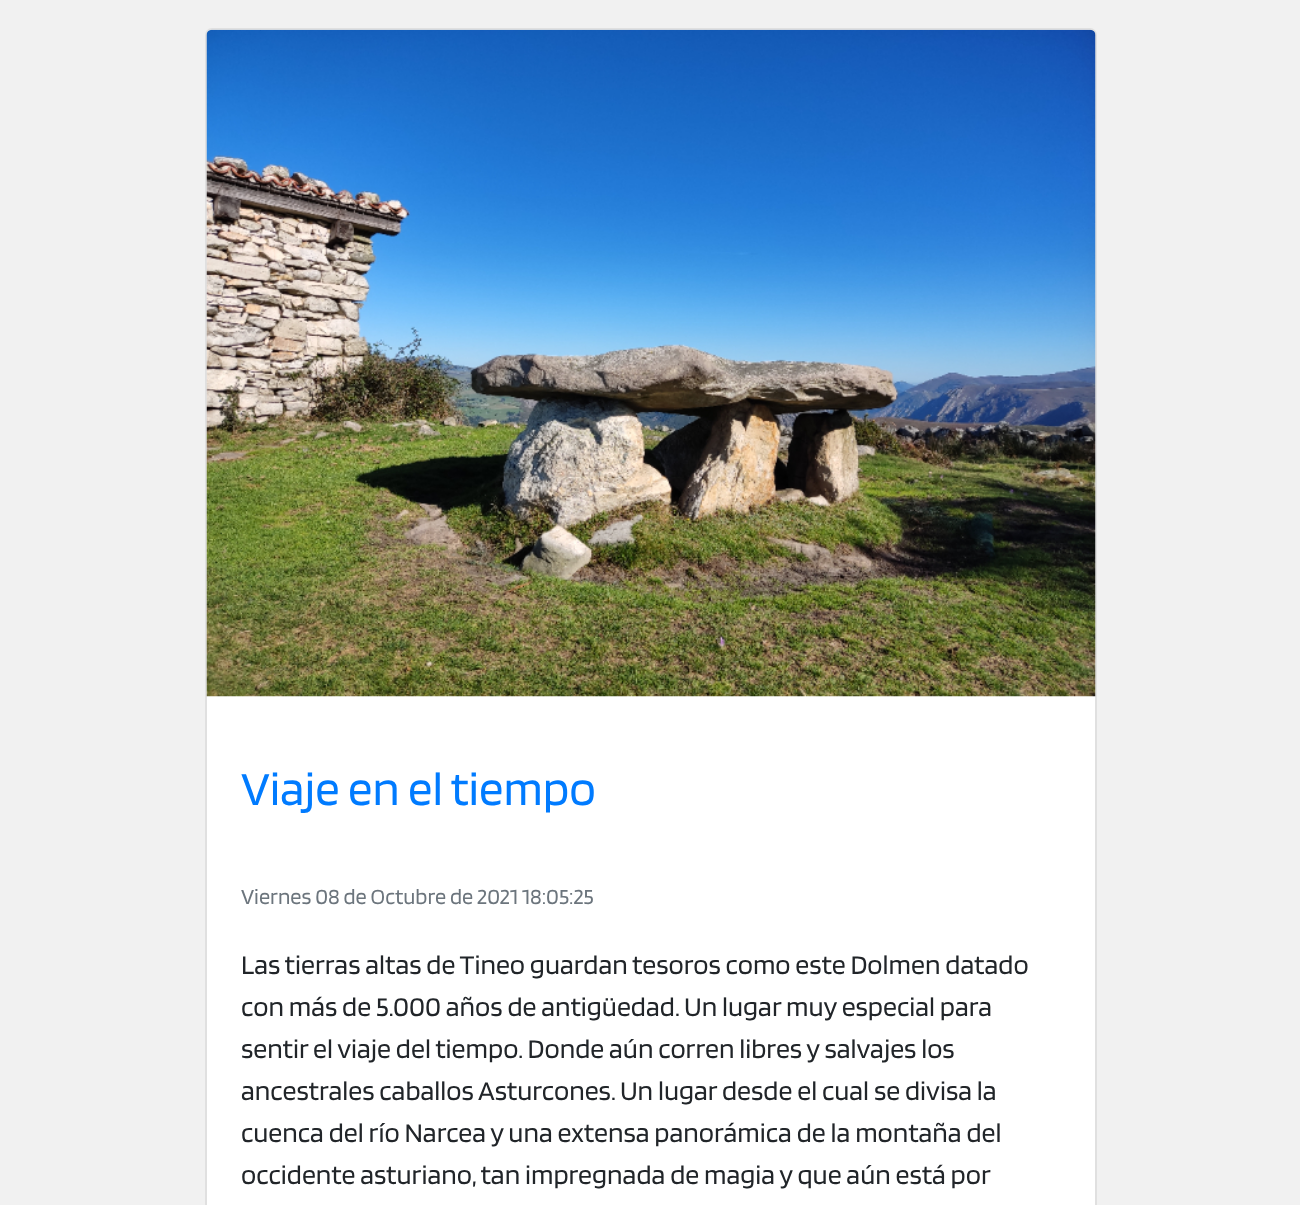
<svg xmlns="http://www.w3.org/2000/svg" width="1300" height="1205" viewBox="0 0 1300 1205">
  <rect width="100%" height="100%" fill="#f1f1f1"/>
  <rect x="205" y="28" width="892" height="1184" rx="7" fill="#ffffff"/>
  <rect x="206" y="29" width="890" height="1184" rx="6" fill="none" stroke="#000000" stroke-opacity="0.12" stroke-width="2"/>
  <image x="206" y="29" width="890" height="668" href="img1.png"/>
  <text x="241" y="805" font-family="Blinker" font-size="49" fill="#007bff">Viaje en el tiempo</text>
  <text x="241" y="904" font-family="Blinker" font-size="22.4" fill="#6c757d">Viernes 08 de Octubre de 2021 18:05:25</text>
  <text x="241" y="974" font-family="Blinker" font-size="28" fill="#212529">Las tierras altas de Tineo guardan tesoros como este Dolmen datado</text>
  <text x="241" y="1016" font-family="Blinker" font-size="28" fill="#212529">con más de 5.000 años de antigüedad. Un lugar muy especial para</text>
  <text x="241" y="1058" font-family="Blinker" font-size="28" fill="#212529">sentir el viaje del tiempo. Donde aún corren libres y salvajes los</text>
  <text x="241" y="1100" font-family="Blinker" font-size="28" fill="#212529">ancestrales caballos Asturcones. Un lugar desde el cual se divisa la</text>
  <text x="241" y="1142" font-family="Blinker" font-size="28" fill="#212529">cuenca del río Narcea y una extensa panorámica de la montaña del</text>
  <text x="241" y="1184" font-family="Blinker" font-size="28" fill="#212529">occidente asturiano, tan impregnada de magia y que aún está por</text>
</svg>
